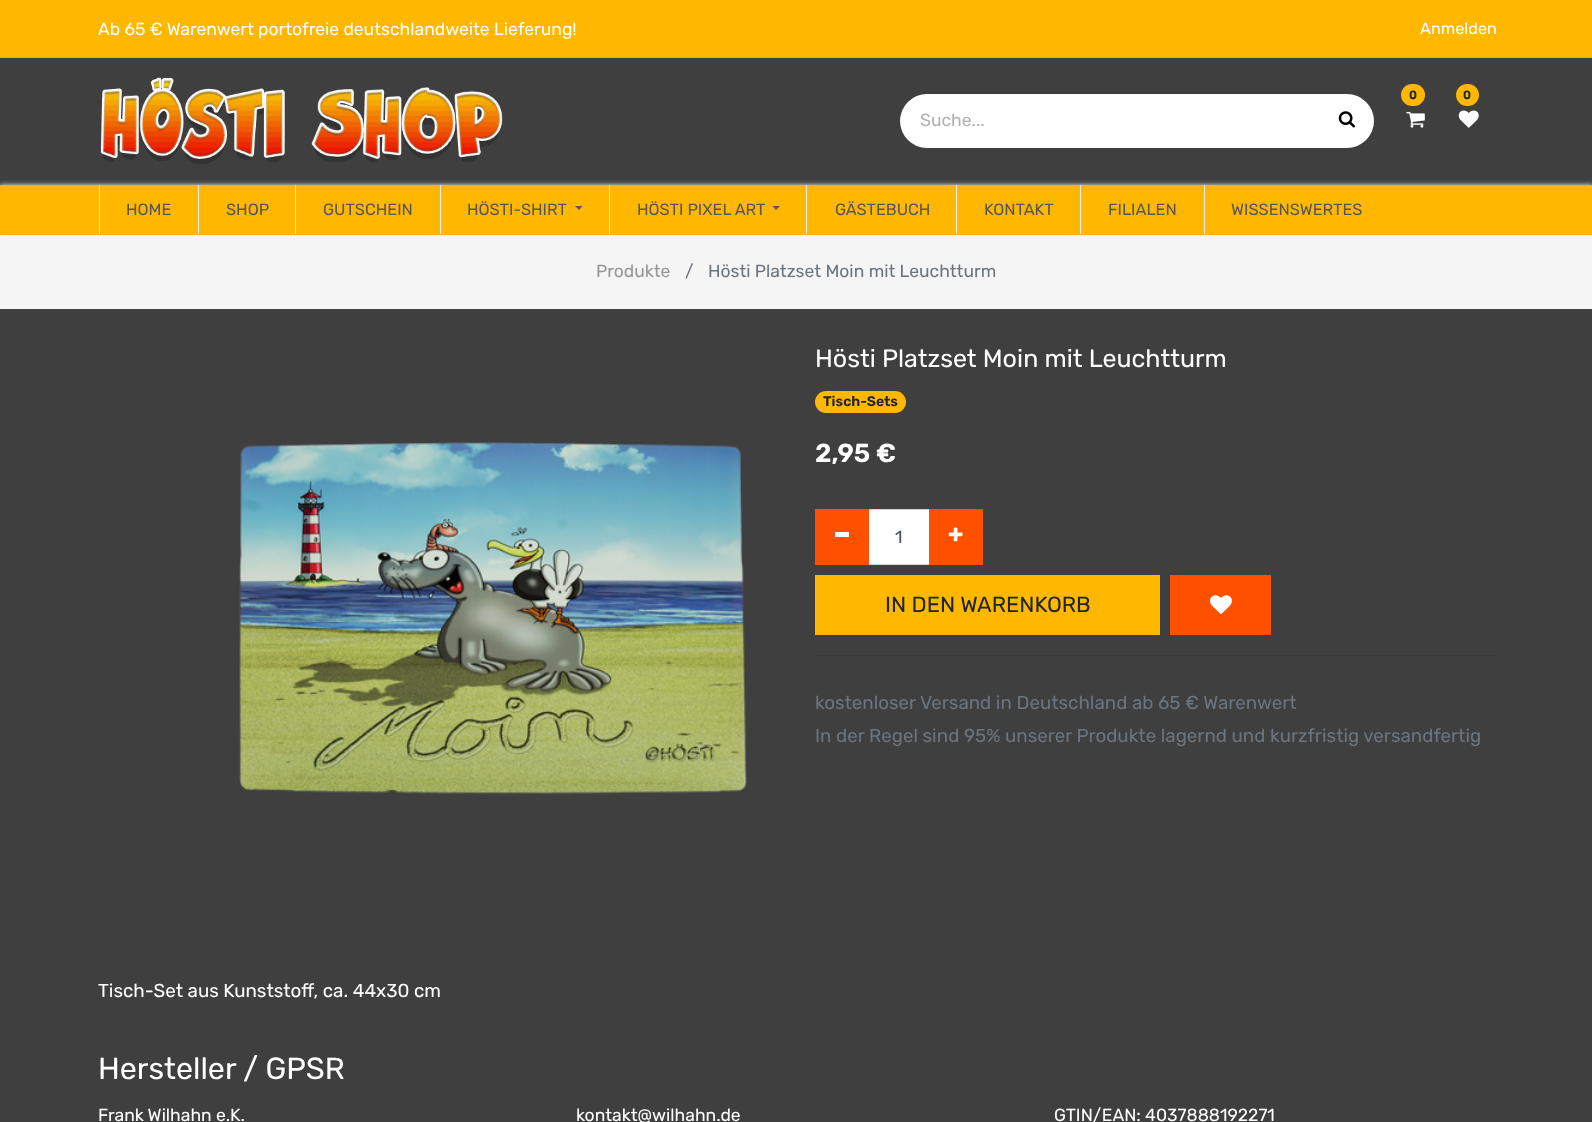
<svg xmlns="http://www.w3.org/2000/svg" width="1592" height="1122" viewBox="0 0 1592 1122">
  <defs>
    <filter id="blur1" x="-50%" y="-200%" width="200%" height="500%"><feGaussianBlur stdDeviation="2.5"/></filter>
  </defs>
  <rect width="100%" height="100%" fill="#3f3f3f"/>
  <rect x="0" y="0" width="1592" height="58" fill="#ffb700"/>
  <text x="98" y="35" font-family="Rubik" font-size="17.5" font-weight="300" fill="#ffffff">Ab 65 € Warenwert portofreie deutschlandweite Lieferung!</text>
  <text x="1420" y="34" font-family="Rubik" font-size="16.25" font-weight="300" fill="#ffffff">Anmelden</text>
  <image x="100" y="77" width="403" height="87" href="img1.png"/>
  <rect x="1401" y="84" width="24" height="22" rx="11" fill="#ffb700"/>
  <text x="1409" y="99" font-family="Rubik" font-size="12" font-weight="600" fill="#212529">0</text>
  <image x="1406" y="111" width="19" height="17" href="img2.png"/>
  <rect x="1456" y="84" width="23" height="22" rx="11" fill="#ffb700"/>
  <text x="1463" y="99" font-family="Rubik" font-size="12" font-weight="600" fill="#212529">0</text>
  <image x="1458" y="110" width="21" height="18" href="img3.png"/>
  <rect x="900" y="94" width="474" height="54" rx="27" fill="#ffffff"/>
  <text x="920" y="126" font-family="Rubik" font-size="17.5" font-weight="300" fill="#b1b1b1">Suche...</text>
  <image x="1338" y="111" width="17" height="17" href="img4.png"/>
  <rect x="0" y="235" width="1592" height="74" fill="#f5f5f5"/>
  <rect x="0" y="185" width="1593" height="50" fill="#ededed" filter="url(#blur1)"/>
  <rect x="0" y="185" width="1592" height="50" fill="#ffb700"/>
  <rect x="99" y="185" width="1" height="49" fill="#ededed"/>
  <text x="126" y="215" font-family="Rubik" font-size="16.25" font-weight="300" fill="#575757">HOME</text>
  <rect x="198" y="185" width="1" height="49" fill="#ededed"/>
  <text x="226" y="215" font-family="Rubik" font-size="16.25" font-weight="300" fill="#575757">SHOP</text>
  <rect x="295" y="185" width="1" height="49" fill="#ededed"/>
  <text x="323" y="215" font-family="Rubik" font-size="16.25" font-weight="300" fill="#575757">GUTSCHEIN</text>
  <rect x="440" y="185" width="1" height="49" fill="#ededed"/>
  <text x="467" y="215" font-family="Rubik" font-size="16.25" font-weight="300" fill="#575757">HÖSTI-SHIRT</text>
  <path d="M575 206H582.5L579 210Z" fill="#575757"/>
  <rect x="609" y="185" width="1" height="49" fill="#ededed"/>
  <text x="637" y="215" font-family="Rubik" font-size="16.25" font-weight="300" fill="#575757">HÖSTI PIXEL ART</text>
  <path d="M772.5 206H780L776 210Z" fill="#575757"/>
  <rect x="806" y="185" width="1" height="49" fill="#ededed"/>
  <text x="835" y="215" font-family="Rubik" font-size="16.25" font-weight="300" fill="#575757">GÄSTEBUCH</text>
  <rect x="956" y="185" width="1" height="49" fill="#ededed"/>
  <text x="984" y="215" font-family="Rubik" font-size="16.25" font-weight="300" fill="#575757">KONTAKT</text>
  <rect x="1080" y="185" width="1" height="49" fill="#ededed"/>
  <text x="1108" y="215" font-family="Rubik" font-size="16.25" font-weight="300" fill="#575757">FILIALEN</text>
  <rect x="1204" y="185" width="1" height="49" fill="#ededed"/>
  <text x="1231" y="215" font-family="Rubik" font-size="16.25" font-weight="300" fill="#575757">WISSENSWERTES</text>
  <text x="596" y="277" font-family="Rubik" font-size="17.5" font-weight="300" fill="#969696">Produkte</text>
  <text x="685" y="277" font-family="Rubik" font-size="17.5" font-weight="300" fill="#6c757d">/</text>
  <text x="708" y="277" font-family="Rubik" font-size="17.5" font-weight="300" fill="#6c757d">Hösti Platzset Moin mit Leuchtturm</text>
  <image x="239" y="442" width="508" height="352" href="img5.png"/>
  <text x="815" y="367" font-family="Rubik" font-size="25" font-weight="300" fill="#ffffff">Hösti Platzset Moin mit Leuchtturm</text>
  <rect x="815" y="391" width="91" height="22" rx="11" fill="#ffb700"/>
  <text x="823" y="406" font-family="Rubik" font-size="14" font-weight="600" fill="#212529">Tisch-Sets</text>
  <text x="815" y="462" font-family="Rubik" font-size="26" font-weight="600" fill="#ffffff">2,95 €</text>
  <rect x="868.5" y="509.5" width="61" height="55" fill="#ffffff" stroke="#ced4da"/>
  <rect x="815" y="509" width="54" height="56" fill="#ff5000"/>
  <rect x="835" y="532" width="14" height="5" fill="#ffffff"/>
  <text x="895" y="543" font-family="Rubik" font-size="17.5" font-weight="300" fill="#495057">1</text>
  <rect x="929" y="509" width="54" height="56" fill="#ff5000"/>
  <image x="948" y="527" width="15" height="15" href="img6.png"/>
  <rect x="815" y="575" width="345" height="60" fill="#ffb700"/>
  <text x="885" y="612" font-family="Rubik" font-size="21.9" font-weight="300" fill="#212529">IN DEN WARENKORB</text>
  <rect x="1170" y="575" width="101" height="60" fill="#ff5000"/>
  <image x="1210" y="595" width="22" height="19" href="img7.png"/>
  <rect x="815" y="655" width="679" height="1" fill="#393939"/>
  <text x="815" y="709" font-family="Rubik" font-size="18.75" font-weight="300" fill="#6c757d">kostenloser Versand in Deutschland ab 65 € Warenwert</text>
  <text x="815" y="742" font-family="Rubik" font-size="18.75" font-weight="300" fill="#6c757d">In der Regel sind 95% unserer Produkte lagernd und kurzfristig versandfertig</text>
  <text x="98" y="997" font-family="Rubik" font-size="18.75" font-weight="300" fill="#ffffff">Tisch-Set aus Kunststoff, ca. 44x30 cm</text>
  <text x="98" y="1079" font-family="Rubik" font-size="30.5" font-weight="300" fill="#ffffff">Hersteller / GPSR</text>
  <text x="98" y="1121" font-family="Rubik" font-size="17.5" font-weight="300" fill="#ffffff">Frank Wilhahn e.K.</text>
  <text x="576" y="1121" font-family="Rubik" font-size="17.5" font-weight="300" fill="#ffffff">kontakt@wilhahn.de</text>
  <text x="1054" y="1121" font-family="Rubik" font-size="17.5" font-weight="300" fill="#ffffff">GTIN/EAN: 4037888192271</text>
</svg>
